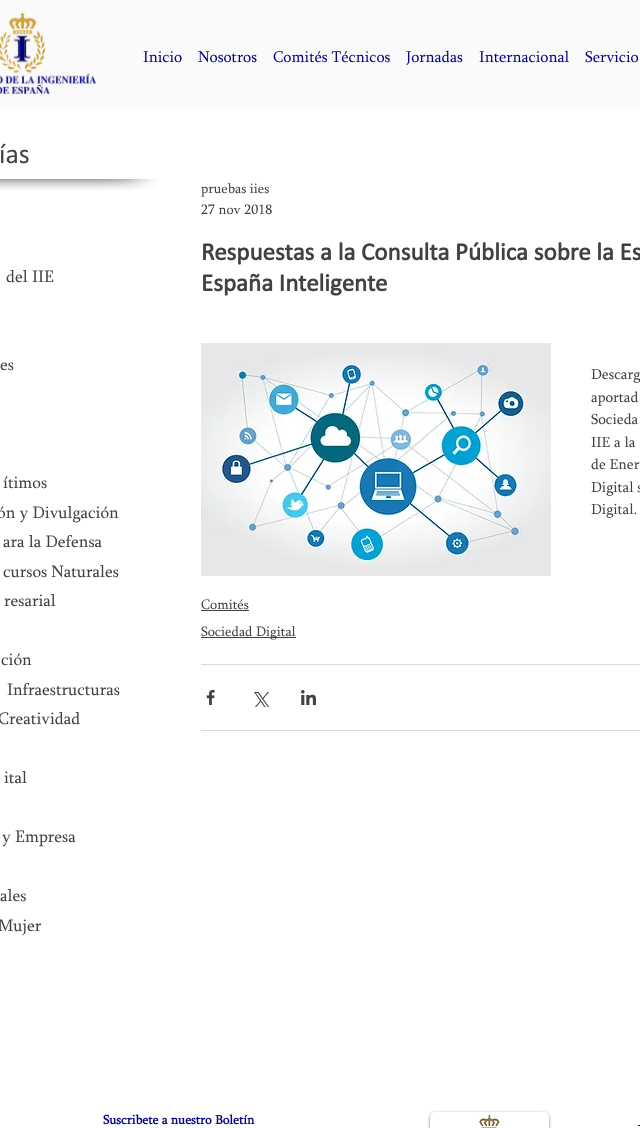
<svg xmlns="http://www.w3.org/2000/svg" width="640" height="1128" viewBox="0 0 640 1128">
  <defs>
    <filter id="blur1" x="-50%" y="-200%" width="200%" height="500%"><feGaussianBlur stdDeviation="1.5"/></filter>
  </defs>
  <rect width="100%" height="100%" fill="#ffffff"/>
  <rect x="0" y="0" width="640" height="109" fill="#fafafa"/>
  <image x="0" y="13" width="96" height="81" href="img1.png"/>
  <text x="143" y="62" font-family="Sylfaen" font-size="16" fill="#040488">Inicio</text>
  <text x="198" y="62" font-family="Sylfaen" font-size="16" fill="#040488">Nosotros</text>
  <text x="273" y="62" font-family="Sylfaen" font-size="16" fill="#040488">Comités Técnicos</text>
  <text x="406" y="62" font-family="Sylfaen" font-size="16" fill="#040488">Jornadas</text>
  <text x="479" y="62" font-family="Sylfaen" font-size="16" fill="#040488">Internacional</text>
  <text x="585" y="62" font-family="Sylfaen" font-size="16" fill="#040488">Servicio</text>
  <text x="-1" y="163" font-family="Calibri" font-size="28" fill="#414141">ías</text>
  <image x="0" y="179" width="5" height="11" href="img2.png"/>
  <image x="5" y="179" width="55" height="11" href="img3.png"/>
  <image x="60" y="179" width="97" height="11" href="img4.png"/>
  <text x="201" y="193" font-family="Sylfaen" font-size="14" fill="#414141">pruebas iies</text>
  <text x="201" y="214" font-family="Sylfaen" font-size="14" fill="#414141">27 nov 2018</text>
  <text x="201" y="260" font-family="Calibri" font-size="25" font-weight="bold" fill="#414141">Respuestas a la Consulta Pública sobre la Es</text>
  <text x="201" y="291" font-family="Calibri" font-size="25" font-weight="bold" fill="#414141">España Inteligente</text>
  <image x="201" y="343" width="350" height="233" href="img5.png"/>
  <text x="591" y="379" font-family="Sylfaen" font-size="15" fill="#414141">Descarg</text>
  <text x="591" y="402" font-family="Sylfaen" font-size="15" fill="#414141">aportad</text>
  <text x="591" y="424" font-family="Sylfaen" font-size="15" fill="#414141">Socieda</text>
  <text x="591" y="447" font-family="Sylfaen" font-size="15" fill="#414141">IIE a la</text>
  <text x="591" y="469" font-family="Sylfaen" font-size="15" fill="#414141">de Ener</text>
  <text x="591" y="492" font-family="Sylfaen" font-size="15" fill="#414141">Digital s</text>
  <text x="591" y="514" font-family="Sylfaen" font-size="15" fill="#414141">Digital.</text>
  <text x="201" y="609" font-family="Sylfaen" font-size="14" fill="#414141">Comités</text>
  <rect x="201" y="610" width="48" height="1" fill="#414141"/>
  <rect x="201" y="637" width="95" height="1" fill="#414141"/>
  <text x="201" y="636" font-family="Sylfaen" font-size="14" fill="#414141">Sociedad Digital</text>
  <rect x="201" y="664" width="439" height="1" fill="#d9d9d9"/>
  <image x="206" y="690" width="9" height="15" href="img6.png"/>
  <image x="254" y="692" width="15" height="15" href="img7.png"/>
  <image x="301" y="690" width="15" height="15" href="img8.png"/>
  <rect x="201" y="730" width="439" height="1" fill="#d9d9d9"/>
  <text x="6" y="282" font-family="Sylfaen" font-size="17" fill="#414141">del IIE</text>
  <text x="0" y="370" font-family="Sylfaen" font-size="17" fill="#414141">es</text>
  <text x="3" y="488" font-family="Sylfaen" font-size="17" fill="#414141">ítimos</text>
  <text x="-3" y="518" font-family="Sylfaen" font-size="17" fill="#414141">ón y Divulgación</text>
  <text x="3" y="547" font-family="Sylfaen" font-size="17" fill="#414141">ara la Defensa</text>
  <text x="3" y="577" font-family="Sylfaen" font-size="17" fill="#414141">cursos Naturales</text>
  <text x="4" y="606" font-family="Sylfaen" font-size="17" fill="#414141">resarial</text>
  <text x="1" y="665" font-family="Sylfaen" font-size="17" fill="#414141">ción</text>
  <text x="7" y="695" font-family="Sylfaen" font-size="17" fill="#414141">Infraestructuras</text>
  <text x="-2" y="724" font-family="Sylfaen" font-size="17" fill="#414141">Creatividad</text>
  <text x="4" y="783" font-family="Sylfaen" font-size="17" fill="#414141">ital</text>
  <text x="2" y="842" font-family="Sylfaen" font-size="17" fill="#414141">y Empresa</text>
  <text x="0" y="901" font-family="Sylfaen" font-size="17" fill="#414141">ales</text>
  <text x="-2" y="931" font-family="Sylfaen" font-size="17" fill="#414141">Mujer</text>
  <text x="103" y="1124" font-family="Sylfaen" font-size="13" font-weight="bold" fill="#040488">Suscribete a nuestro Boletín</text>
  <rect x="430" y="1113" width="119" height="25" rx="5" fill="#000000" fill-opacity="0.5" filter="url(#blur1)"/>
  <rect x="431" y="1113" width="117" height="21" rx="4" fill="#ffffff" stroke="#ffffff" stroke-width="2"/>
  <image x="479" y="1114" width="21" height="14" href="img9.png"/>
  <rect x="638" y="1125" width="2" height="1" fill="#040488"/>
</svg>
